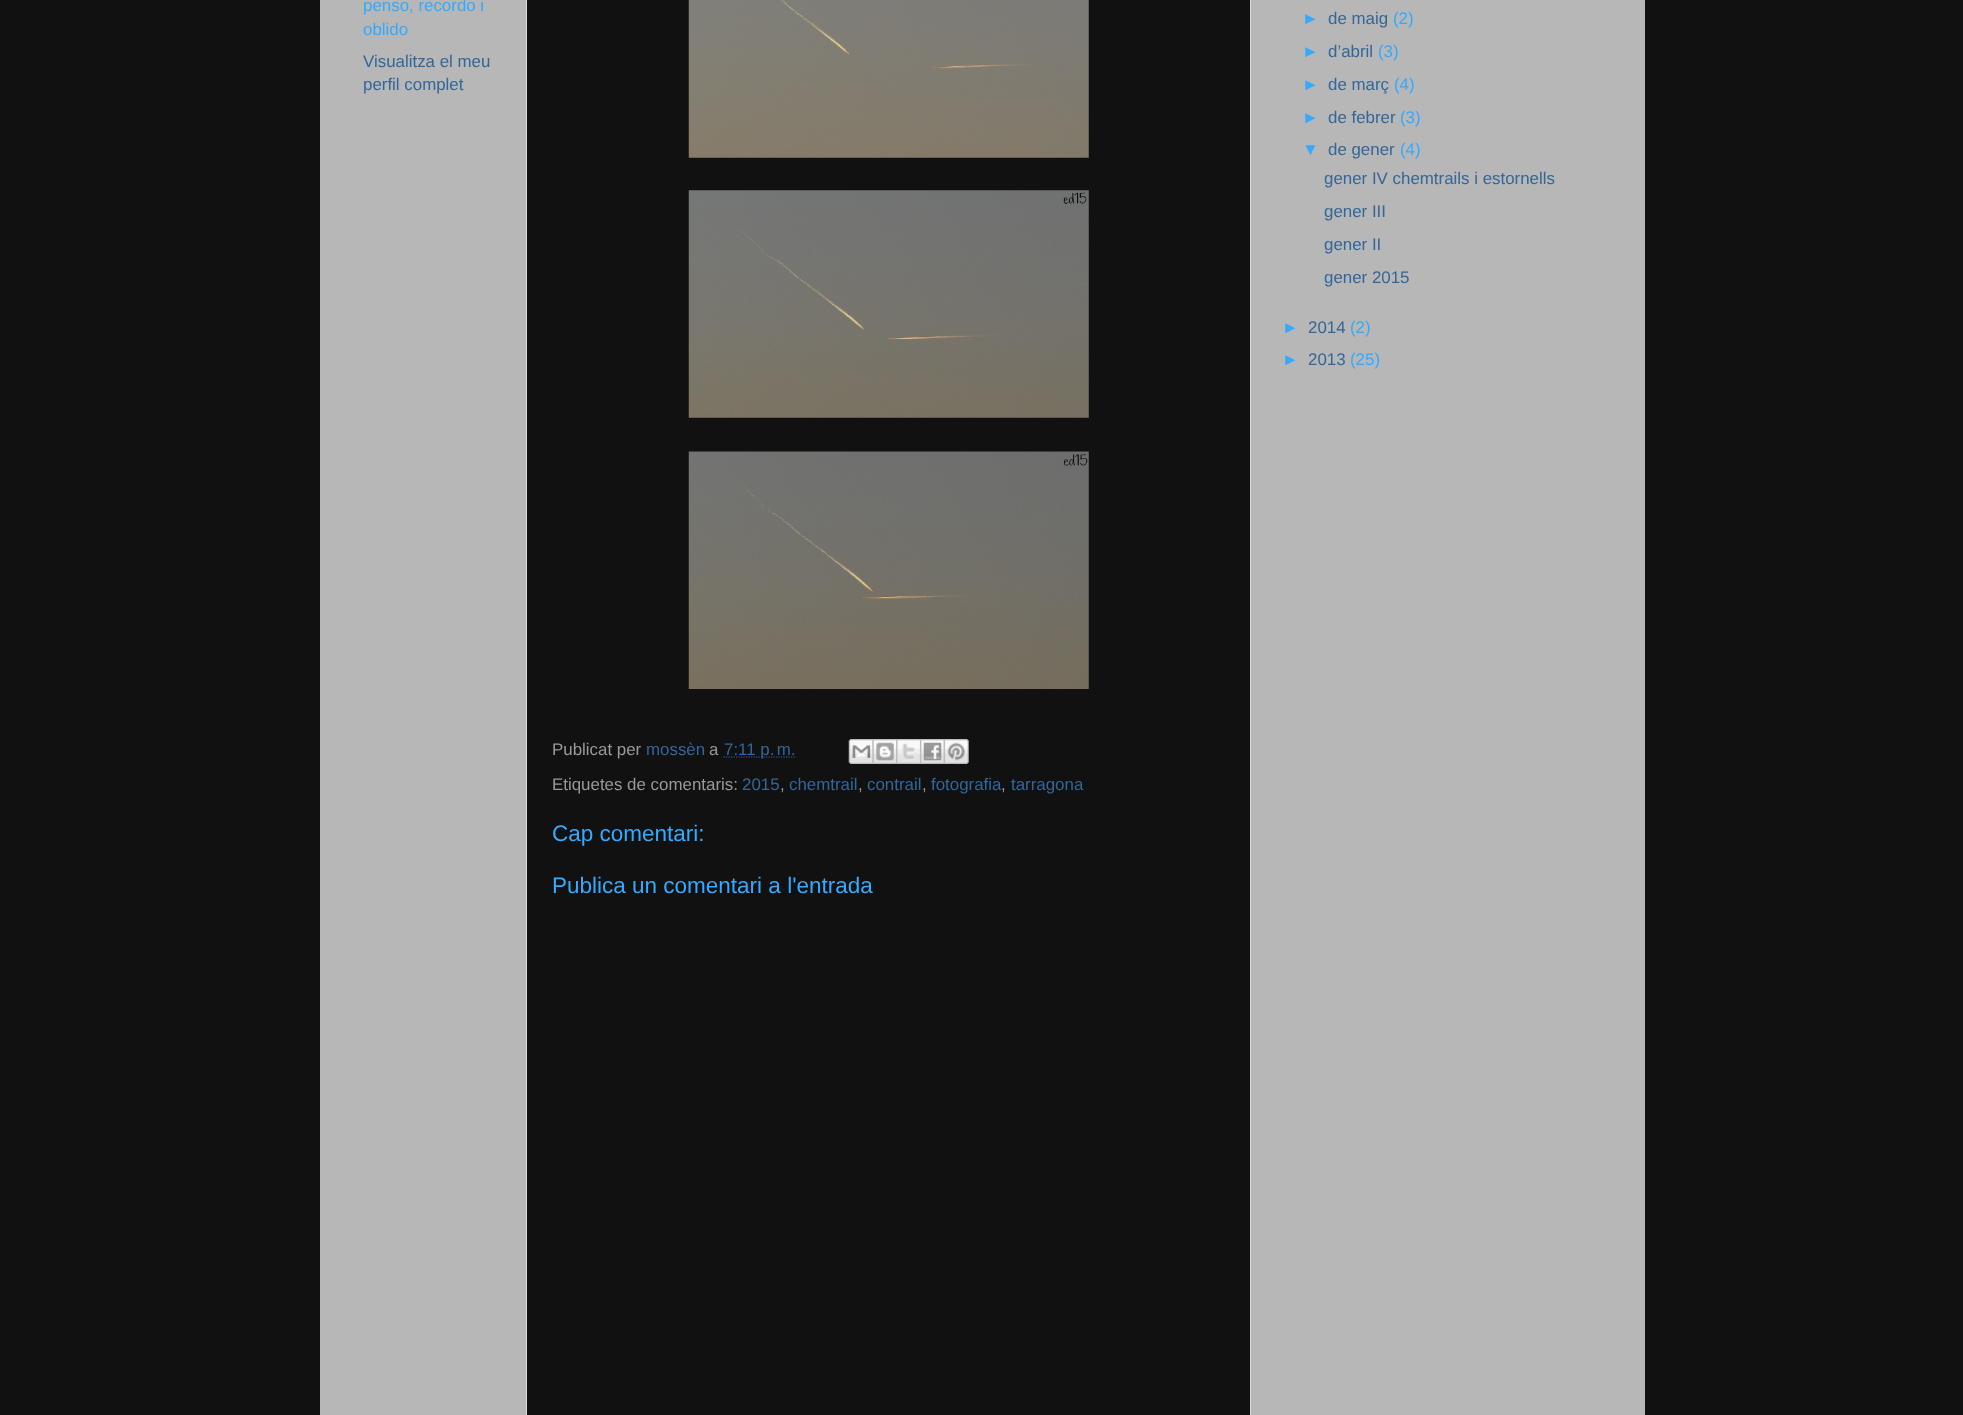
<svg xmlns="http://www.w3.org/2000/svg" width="1963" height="1415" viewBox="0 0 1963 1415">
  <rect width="100%" height="100%" fill="#111111"/>
  <rect x="320" y="0" width="1325" height="1415" fill="#b7b7b7"/>
  <text x="363" y="11" font-family="Arimo" font-size="16.9" fill="#33aaff">penso, recordo i</text>
  <text x="363" y="35" font-family="Arimo" font-size="16.9" fill="#33aaff">oblido</text>
  <text x="363" y="67" font-family="Arimo" font-size="16.9" fill="#336699">Visualitza el meu</text>
  <text x="363" y="90" font-family="Arimo" font-size="16.9" fill="#336699">perfil complet</text>
  <text x="1302" y="24" font-family="Liberation Sans" font-size="16.9" fill="#33aaff">►</text>
  <text x="1328" y="24" font-family="Arimo" font-size="16.9" fill="#336699">de maig</text>
  <text x="1393" y="24" font-family="Arimo" font-size="16.9" fill="#33aaff">(2)</text>
  <text x="1302" y="57" font-family="Liberation Sans" font-size="16.9" fill="#33aaff">►</text>
  <text x="1328" y="57" font-family="Arimo" font-size="16.9" fill="#336699">d’abril</text>
  <text x="1378" y="57" font-family="Arimo" font-size="16.9" fill="#33aaff">(3)</text>
  <text x="1302" y="90" font-family="Liberation Sans" font-size="16.9" fill="#33aaff">►</text>
  <text x="1328" y="90" font-family="Arimo" font-size="16.9" fill="#336699">de març</text>
  <text x="1394" y="90" font-family="Arimo" font-size="16.9" fill="#33aaff">(4)</text>
  <text x="1302" y="123" font-family="Liberation Sans" font-size="16.9" fill="#33aaff">►</text>
  <text x="1328" y="123" font-family="Arimo" font-size="16.9" fill="#336699">de febrer</text>
  <text x="1400" y="123" font-family="Arimo" font-size="16.9" fill="#33aaff">(3)</text>
  <text x="1302" y="155" font-family="Liberation Sans" font-size="16.9" fill="#33aaff">▼</text>
  <text x="1328" y="155" font-family="Arimo" font-size="16.9" fill="#336699">de gener</text>
  <text x="1400" y="155" font-family="Arimo" font-size="16.9" fill="#33aaff">(4)</text>
  <text x="1324" y="184" font-family="Arimo" font-size="16.9" fill="#336699">gener IV chemtrails i estornells</text>
  <text x="1324" y="217" font-family="Arimo" font-size="16.9" fill="#336699">gener III</text>
  <text x="1324" y="250" font-family="Arimo" font-size="16.9" fill="#336699">gener II</text>
  <text x="1324" y="283" font-family="Arimo" font-size="16.9" fill="#336699">gener 2015</text>
  <text x="1282" y="333" font-family="Liberation Sans" font-size="16.9" fill="#33aaff">►</text>
  <text x="1308" y="333" font-family="Arimo" font-size="16.9" fill="#336699">2014</text>
  <text x="1350" y="333" font-family="Arimo" font-size="16.9" fill="#33aaff">(2)</text>
  <text x="1282" y="365" font-family="Liberation Sans" font-size="16.9" fill="#33aaff">►</text>
  <text x="1308" y="365" font-family="Arimo" font-size="16.9" fill="#336699">2013</text>
  <text x="1350" y="365" font-family="Arimo" font-size="16.9" fill="#33aaff">(25)</text>
  <rect x="526.5" y="-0.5" width="724" height="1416" fill="#111111" stroke="#dddddd"/>
  <image x="688" y="0" width="401" height="158" href="img1.png"/>
  <image x="688" y="190" width="401" height="228" href="img2.png"/>
  <image x="688" y="451" width="401" height="238" href="img3.png"/>
  <text x="552" y="755" font-family="Arimo" font-size="16.9" fill="#999999">Publicat per</text>
  <text x="646" y="755" font-family="Arimo" font-size="16.9" fill="#336699">mossèn</text>
  <text x="709" y="755" font-family="Arimo" font-size="16.9" fill="#999999">a</text>
  <path d="M723.5 757H795" fill="none" stroke="#336699" stroke-width="1.2" stroke-dasharray="1.25 1.25"/>
  <text x="724" y="755" font-family="Arimo" font-size="16.9" fill="#336699">7:11 p. m.</text>
  <image x="848" y="739" width="25" height="25" href="img4.png"/>
  <image x="872" y="739" width="25" height="25" href="img5.png"/>
  <image x="896" y="739" width="24" height="25" href="img6.png"/>
  <image x="920" y="739" width="24" height="25" href="img7.png"/>
  <image x="943" y="739" width="26" height="25" href="img8.png"/>
  <text x="552" y="790" font-family="Arimo" font-size="16.9" fill="#999999">Etiquetes de comentaris:</text>
  <text x="742" y="790" font-family="Arimo" font-size="16.9" fill="#336699">2015</text>
  <text x="780" y="790" font-family="Arimo" font-size="16.9" fill="#999999">,</text>
  <text x="789" y="790" font-family="Arimo" font-size="16.9" fill="#336699">chemtrail</text>
  <text x="858" y="790" font-family="Arimo" font-size="16.9" fill="#999999">,</text>
  <text x="867" y="790" font-family="Arimo" font-size="16.9" fill="#336699">contrail</text>
  <text x="922" y="790" font-family="Arimo" font-size="16.9" fill="#999999">,</text>
  <text x="931" y="790" font-family="Arimo" font-size="16.9" fill="#336699">fotografia</text>
  <text x="1001" y="790" font-family="Arimo" font-size="16.9" fill="#999999">,</text>
  <text x="1011" y="790" font-family="Arimo" font-size="16.9" fill="#336699">tarragona</text>
  <text x="552" y="841" font-family="Liberation Sans" font-size="22.5" fill="#33aaff">Cap comentari:</text>
  <text x="552" y="893" font-family="Liberation Sans" font-size="22.5" fill="#33aaff">Publica un comentari a l'entrada</text>
</svg>
